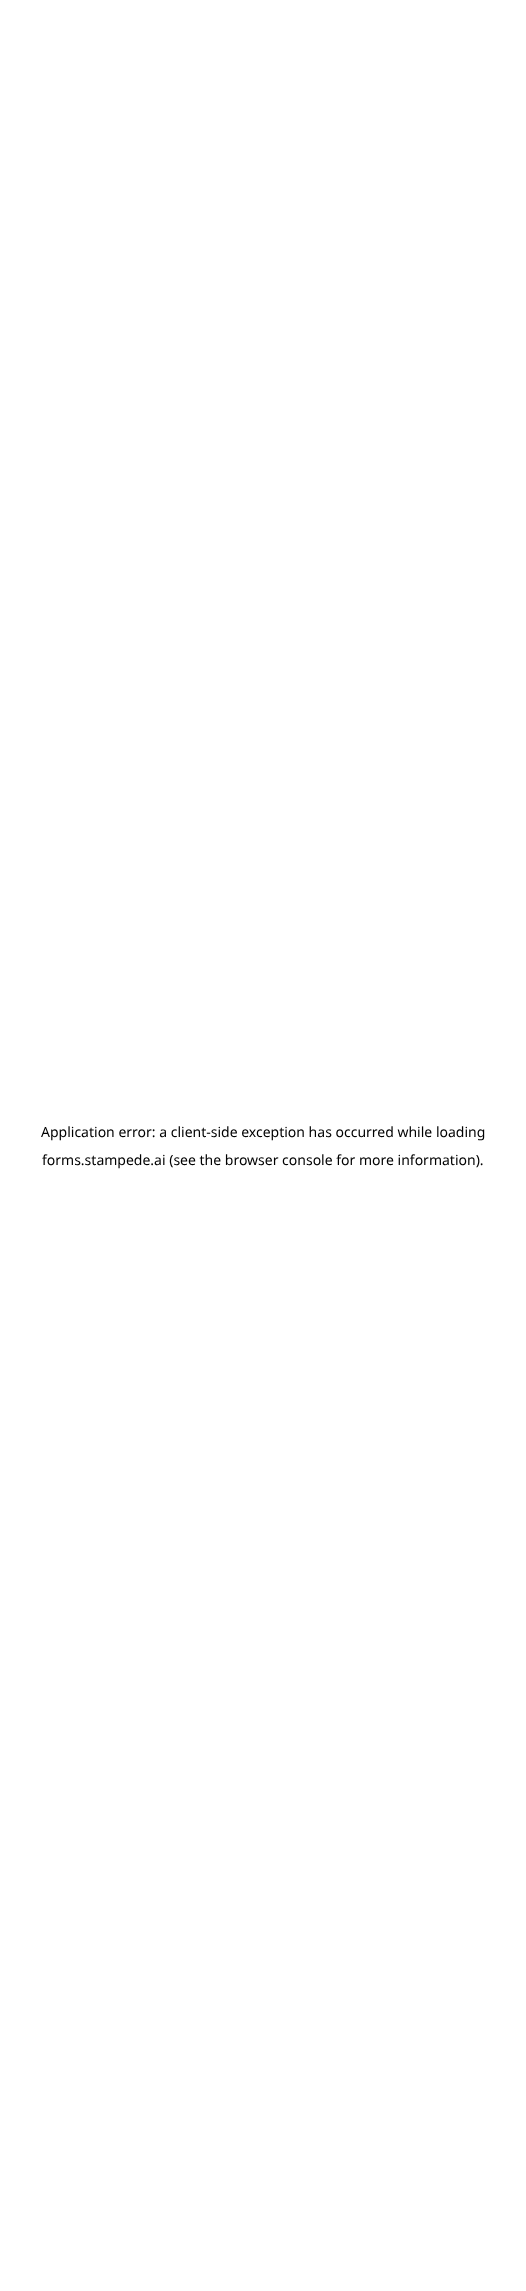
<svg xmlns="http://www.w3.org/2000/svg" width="526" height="2291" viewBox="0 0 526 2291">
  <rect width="100%" height="100%" fill="#ffffff"/>
  <text x="41" y="1137" font-family="Noto Sans" font-size="14" fill="#000000">Application error: a client-side exception has occurred while loading</text>
  <text x="42" y="1165" font-family="Noto Sans" font-size="14" fill="#000000">forms.stampede.ai (see the browser console for more information).</text>
</svg>
